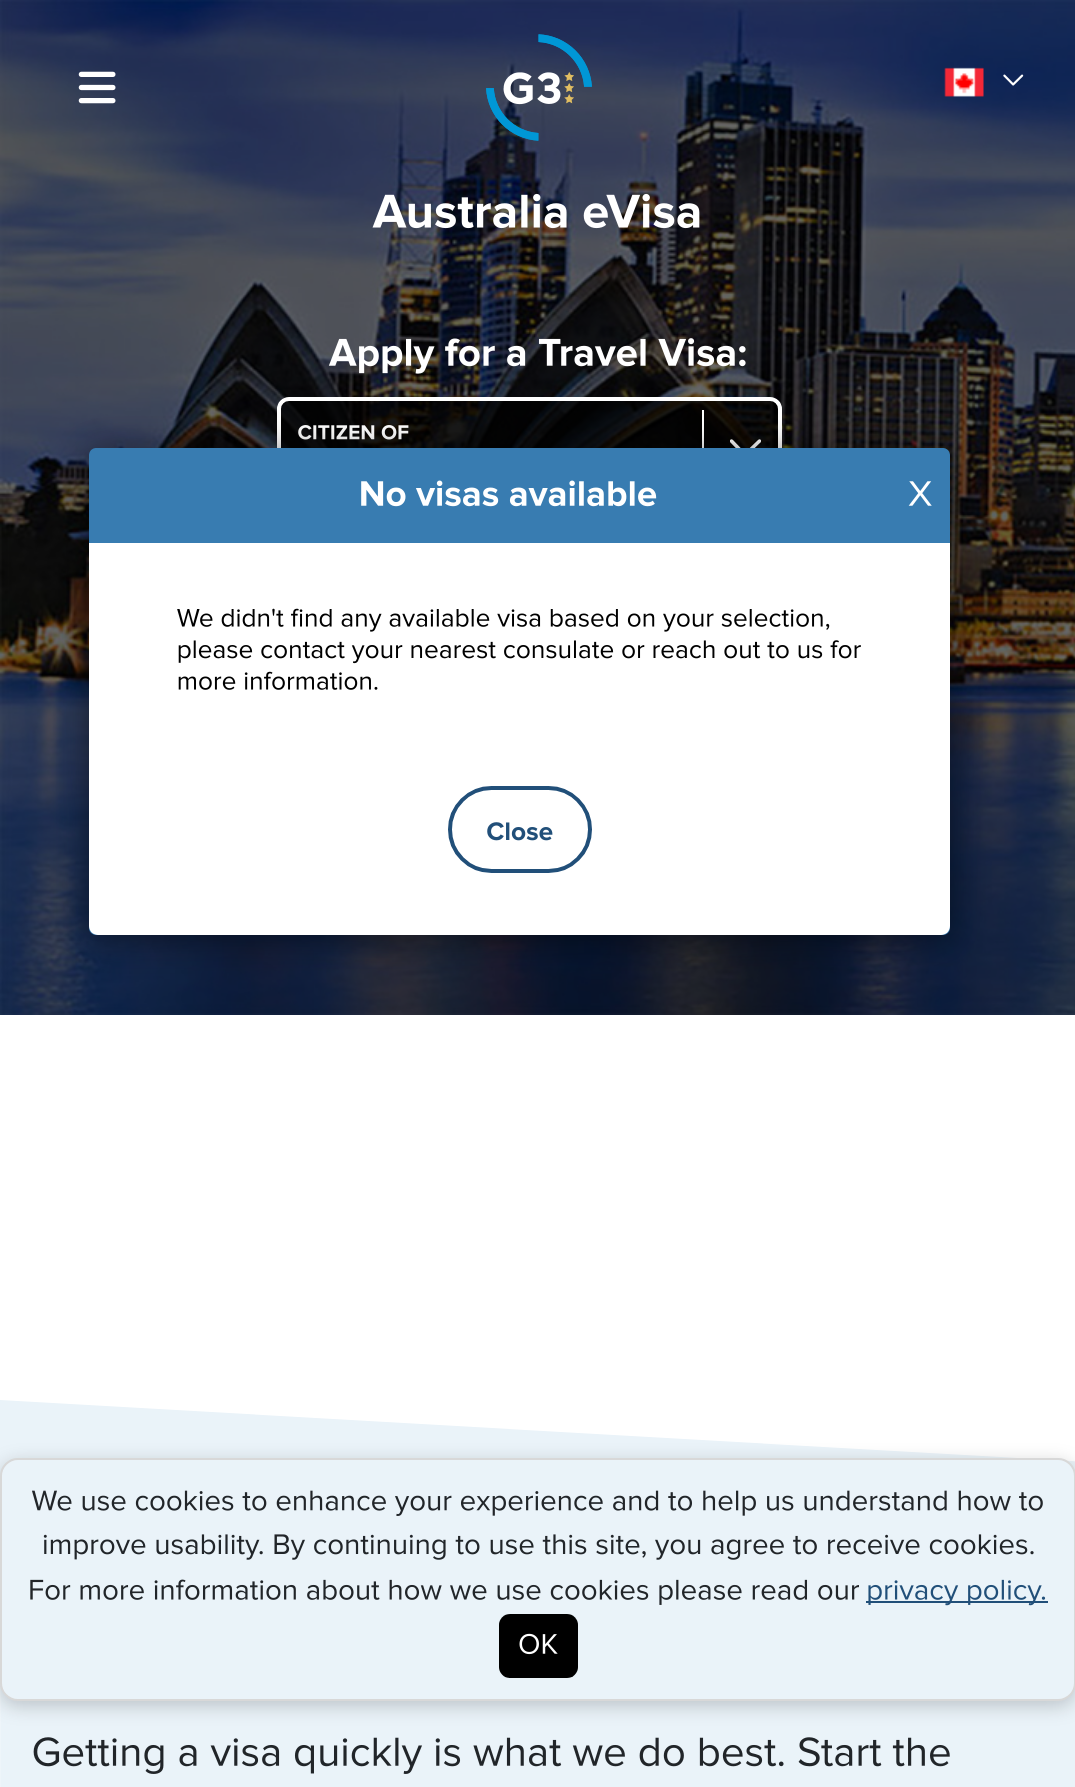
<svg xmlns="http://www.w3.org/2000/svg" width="1075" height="1787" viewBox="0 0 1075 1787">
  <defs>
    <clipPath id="clip1"><rect x="730" y="439" width="31" height="18"/></clipPath>
    <filter id="blur1" x="-50%" y="-200%" width="200%" height="500%"><feGaussianBlur stdDeviation="17.5"/></filter>
    <filter id="blur2" x="-50%" y="-200%" width="200%" height="500%"><feGaussianBlur stdDeviation="9.5"/></filter>
  </defs>
  <rect width="100%" height="100%" fill="#ffffff"/>
  <image x="0" y="0" width="1075" height="1015" href="img1.png"/>
  <image x="78" y="71" width="38" height="33" href="img2.png"/>
  <image x="486" y="34" width="106" height="107" href="img3.png"/>
  <image x="944" y="67" width="40" height="30" href="img4.png"/>
  <image x="1003" y="74" width="21" height="12" href="img5.png"/>
  <image x="372" y="193" width="328" height="36" href="img6.png"/>
  <image x="328" y="338" width="418" height="36" href="img7.png"/>
  <rect x="279" y="399" width="501" height="98" rx="10" fill="#000000" fill-opacity="0.75" stroke="#ffffff" stroke-width="4"/>
  <image x="298" y="425" width="111" height="15" href="img8.png"/>
  <g clip-path="url(#clip1)">
    <path d="M759.5 441L745 455L731.5 441" fill="none" stroke="#ffffff" stroke-width="3.5" stroke-linecap="round" stroke-linejoin="round"/>
  </g>
  <rect x="702" y="410" width="2" height="38" fill="#ffffff"/>
  <rect x="89" y="452" width="861" height="486" rx="7" fill="#000000" fill-opacity="0.5" filter="url(#blur1)"/>
  <rect x="89" y="448" width="861" height="487" rx="7" fill="#387cb1"/>
  <path d="M98 448H941C946 448 950 452 950 457V543H89V457C89 452 93 448 98 448Z" fill="#387cb1"/>
  <image x="361" y="480" width="296" height="27" href="img9.png"/>
  <image x="908" y="481" width="24" height="25" href="img10.png"/>
  <path d="M89 543H950V926C950 931 946 935 941 935H98C93 935 89 931 89 926Z" fill="#ffffff"/>
  <image x="177" y="608" width="653" height="24" href="img11.png"/>
  <image x="178" y="640" width="683" height="24" href="img12.png"/>
  <image x="178" y="671" width="200" height="19" href="img13.png"/>
  <rect x="450" y="788" width="140" height="83" rx="41.5" fill="none" stroke="#214f79" stroke-width="4"/>
  <image x="487" y="822" width="66" height="19" href="img14.png"/>
  <path d="M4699 1668L0 1400L2 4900H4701Z" fill="#eaf3f9" fill-rule="evenodd"/>
  <rect x="0" y="1463" width="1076" height="243" rx="18" fill="#000000" fill-opacity="0.2" filter="url(#blur2)"/>
  <rect x="1" y="1459" width="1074" height="241" rx="17" fill="#eaf3f9" stroke="#d8d8d8" stroke-width="2"/>
  <image x="32" y="1490" width="1011" height="26" href="img15.png"/>
  <image x="43" y="1534" width="991" height="26" href="img16.png"/>
  <image x="30" y="1579" width="829" height="26" href="img17.png"/>
  <rect x="866" y="1601" width="182" height="2" fill="#214f79"/>
  <image x="868" y="1579" width="178" height="27" href="img18.png"/>
  <rect x="499" y="1614" width="79" height="64" rx="11" fill="#000000"/>
  <image x="519" y="1633" width="39" height="22" href="img19.png"/>
  <image x="33" y="1737" width="917" height="37" href="img20.png"/>
</svg>
